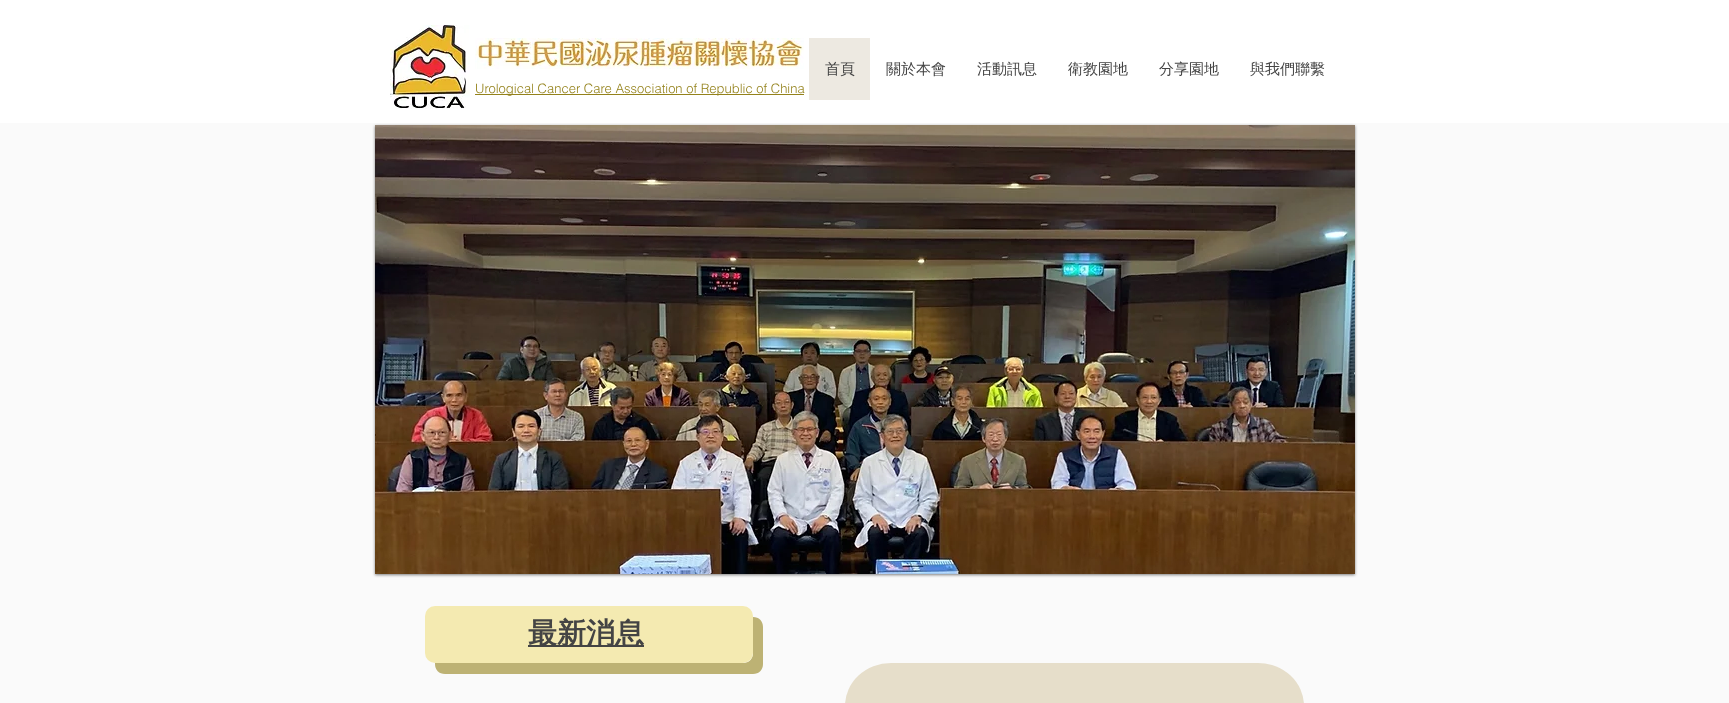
<svg xmlns="http://www.w3.org/2000/svg" width="1729" height="703" viewBox="0 0 1729 703">
  <defs>
    <filter id="blur1" x="-50%" y="-200%" width="200%" height="500%"><feGaussianBlur stdDeviation="1.5"/></filter>
  </defs>
  <rect width="100%" height="100%" fill="#fafafa"/>
  <rect x="0" y="0" width="1729" height="123" fill="#ffffff"/>
  <image x="390" y="25" width="80" height="84" href="img1.png"/>
  <image x="475" y="38" width="329" height="31" href="img2.png"/>
  <rect x="809" y="38" width="61" height="62" fill="#ede9e1"/>
  <text x="825" y="74" font-family="WenQuanYi Zen Hei" font-size="15" font-weight="500" fill="#444444">首頁</text>
  <text x="886" y="74" font-family="WenQuanYi Zen Hei" font-size="15" font-weight="500" fill="#444444">關於本會</text>
  <text x="977" y="74" font-family="WenQuanYi Zen Hei" font-size="15" font-weight="500" fill="#444444">活動訊息</text>
  <text x="1068" y="74" font-family="WenQuanYi Zen Hei" font-size="15" font-weight="500" fill="#444444">衛教園地</text>
  <text x="1159" y="74" font-family="WenQuanYi Zen Hei" font-size="15" font-weight="500" fill="#444444">分享園地</text>
  <text x="1250" y="74" font-family="WenQuanYi Zen Hei" font-size="15" font-weight="500" fill="#444444">與我們聯繫</text>
  <rect x="475" y="94" width="329" height="1" fill="#94821b"/>
  <text x="475" y="93" font-family="helvetica" font-size="13" font-weight="300" fill="#94821b">Urological Cancer Care Association of Republic of China</text>
  <rect x="375" y="126" width="980" height="449" fill="#000000" fill-opacity="0.5" filter="url(#blur1)"/>
  <image x="375" y="125" width="980" height="449" href="img3.png"/>
  <path d="M435 663V664C435 670 439 674 445 674H753C759 674 763 670 763 664V627C763 621 759 617 753 617V653C753 659 749 663 743 663Z" fill="#bdb274"/>
  <rect x="425" y="606" width="328" height="57" rx="10" fill="#f4eab1"/>
  <rect x="528" y="645" width="116" height="2" fill="#444444"/>
  <text x="528" y="643" font-family="WenQuanYi Zen Hei" font-size="29" font-weight="bold" fill="#444444">最新消息</text>
  <rect x="845" y="663" width="459" height="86" rx="46" fill="#e6deca"/>
</svg>
